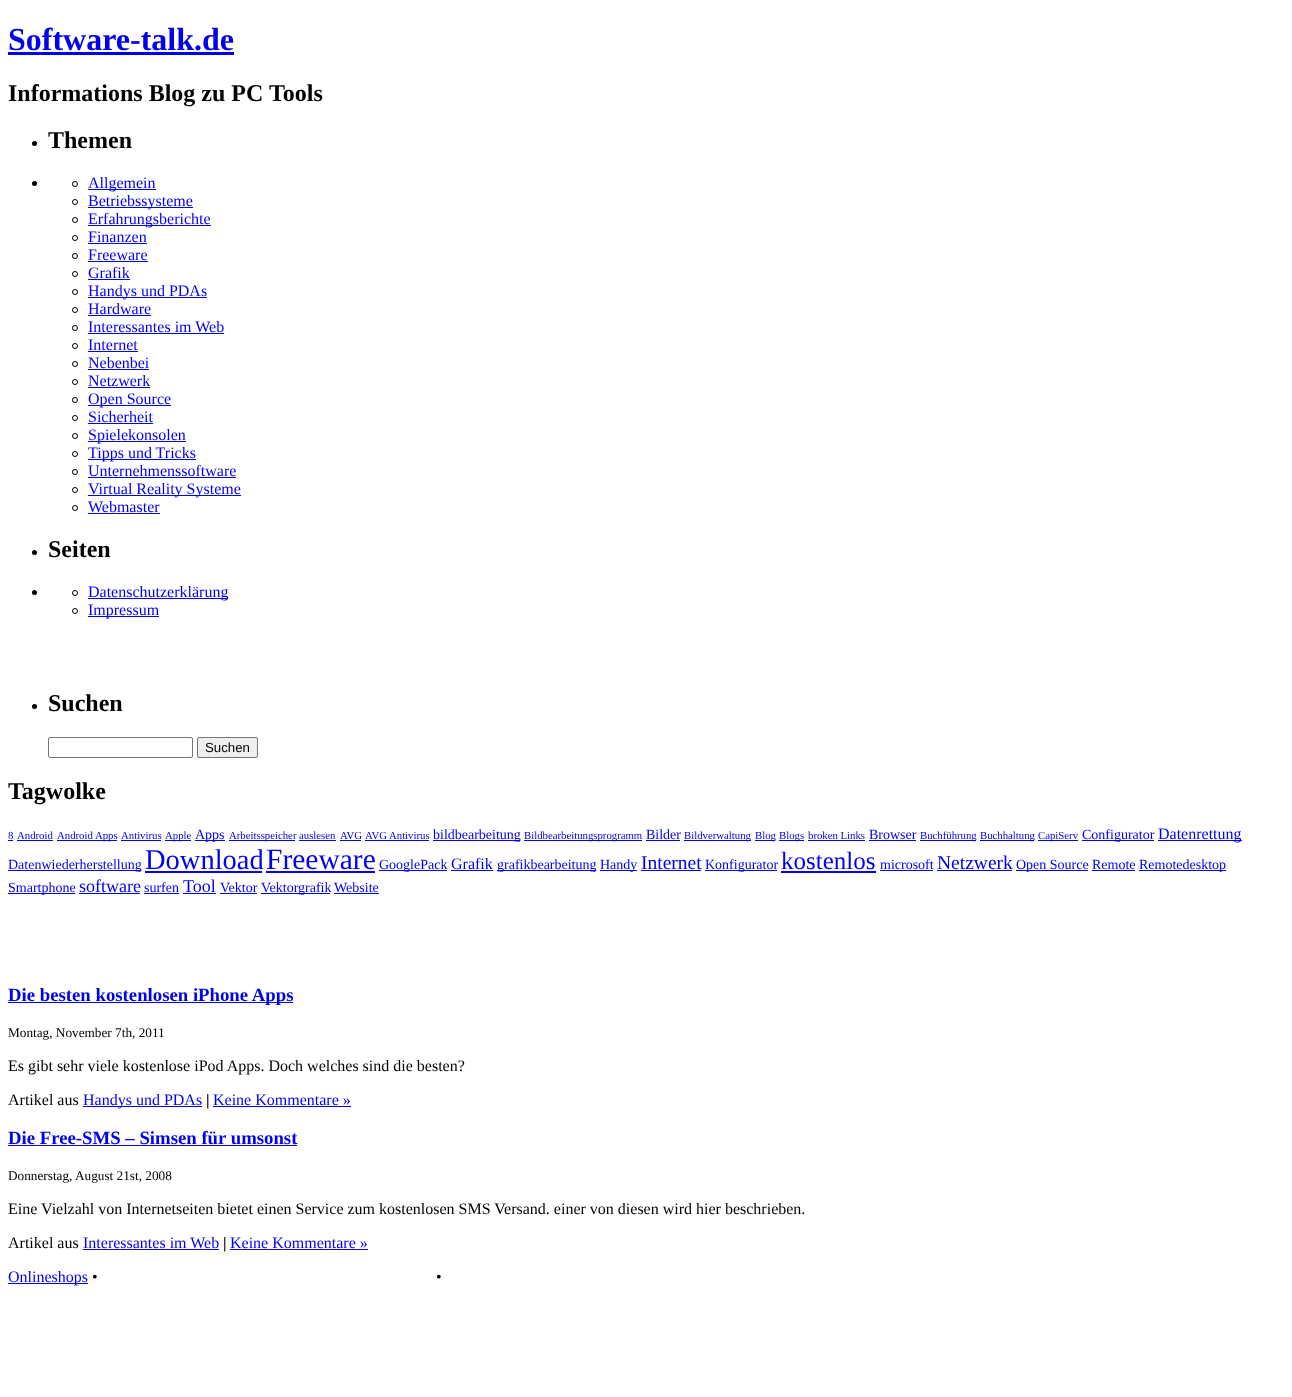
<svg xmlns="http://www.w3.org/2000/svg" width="1292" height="1397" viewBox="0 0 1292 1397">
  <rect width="100%" height="100%" fill="#ffffff"/>
  <text x="8" y="50" font-family="Liberation Serif" font-size="32" font-weight="bold" fill="#0000ee">Software-talk.de</text>
  <rect x="8" y="52" width="226" height="3" fill="#0000ee"/>
  <text x="8" y="101" font-family="Liberation Serif" font-size="24" font-weight="bold" fill="#000000">Informations Blog zu PC Tools</text>
  <circle cx="34.5" cy="143.5" r="2.5" fill="#000000"/>
  <text x="48" y="148" font-family="Liberation Serif" font-size="24" font-weight="bold" fill="#000000">Themen</text>
  <circle cx="34.5" cy="183.5" r="2.5" fill="#000000"/>
  <circle cx="75" cy="184" r="2.5" fill="none" stroke="#000000"/>
  <rect x="88" y="189" width="68" height="1" fill="#0000ee"/>
  <text x="88" y="188" font-family="Liberation Serif" font-size="16" fill="#0000ee">Allgemein</text>
  <circle cx="75" cy="202" r="2.5" fill="none" stroke="#000000"/>
  <rect x="88" y="207" width="105" height="1" fill="#0000ee"/>
  <text x="88" y="206" font-family="Liberation Serif" font-size="16" fill="#0000ee">Betriebssysteme</text>
  <circle cx="75" cy="220" r="2.5" fill="none" stroke="#000000"/>
  <rect x="88" y="225" width="123" height="1" fill="#0000ee"/>
  <text x="88" y="224" font-family="Liberation Serif" font-size="16" fill="#0000ee">Erfahrungsberichte</text>
  <circle cx="75" cy="238" r="2.5" fill="none" stroke="#000000"/>
  <text x="88" y="242" font-family="Liberation Serif" font-size="16" fill="#0000ee">Finanzen</text>
  <rect x="88" y="243" width="59" height="1" fill="#0000ee"/>
  <circle cx="75" cy="256" r="2.5" fill="none" stroke="#000000"/>
  <text x="88" y="260" font-family="Liberation Serif" font-size="16" fill="#0000ee">Freeware</text>
  <rect x="88" y="261" width="60" height="1" fill="#0000ee"/>
  <circle cx="75" cy="274" r="2.5" fill="none" stroke="#000000"/>
  <text x="88" y="278" font-family="Liberation Serif" font-size="16" fill="#0000ee">Grafik</text>
  <rect x="88" y="279" width="42" height="1" fill="#0000ee"/>
  <circle cx="75" cy="292" r="2.5" fill="none" stroke="#000000"/>
  <rect x="88" y="297" width="119" height="1" fill="#0000ee"/>
  <text x="88" y="296" font-family="Liberation Serif" font-size="16" fill="#0000ee">Handys und PDAs</text>
  <circle cx="75" cy="310" r="2.5" fill="none" stroke="#000000"/>
  <text x="88" y="314" font-family="Liberation Serif" font-size="16" fill="#0000ee">Hardware</text>
  <rect x="88" y="315" width="63" height="1" fill="#0000ee"/>
  <circle cx="75" cy="328" r="2.5" fill="none" stroke="#000000"/>
  <text x="88" y="332" font-family="Liberation Serif" font-size="16" fill="#0000ee">Interessantes im Web</text>
  <rect x="88" y="333" width="136" height="1" fill="#0000ee"/>
  <circle cx="75" cy="346" r="2.5" fill="none" stroke="#000000"/>
  <text x="88" y="350" font-family="Liberation Serif" font-size="16" fill="#0000ee">Internet</text>
  <rect x="88" y="351" width="50" height="1" fill="#0000ee"/>
  <circle cx="75" cy="364" r="2.5" fill="none" stroke="#000000"/>
  <text x="88" y="368" font-family="Liberation Serif" font-size="16" fill="#0000ee">Nebenbei</text>
  <rect x="88" y="369" width="61" height="1" fill="#0000ee"/>
  <circle cx="75" cy="382" r="2.5" fill="none" stroke="#000000"/>
  <text x="88" y="386" font-family="Liberation Serif" font-size="16" fill="#0000ee">Netzwerk</text>
  <rect x="88" y="387" width="62" height="1" fill="#0000ee"/>
  <circle cx="75" cy="400" r="2.5" fill="none" stroke="#000000"/>
  <rect x="88" y="405" width="83" height="1" fill="#0000ee"/>
  <text x="88" y="404" font-family="Liberation Serif" font-size="16" fill="#0000ee">Open Source</text>
  <circle cx="75" cy="418" r="2.5" fill="none" stroke="#000000"/>
  <text x="88" y="422" font-family="Liberation Serif" font-size="16" fill="#0000ee">Sicherheit</text>
  <rect x="88" y="423" width="65" height="1" fill="#0000ee"/>
  <circle cx="75" cy="436" r="2.5" fill="none" stroke="#000000"/>
  <rect x="88" y="441" width="98" height="1" fill="#0000ee"/>
  <text x="88" y="440" font-family="Liberation Serif" font-size="16" fill="#0000ee">Spielekonsolen</text>
  <circle cx="75" cy="454" r="2.5" fill="none" stroke="#000000"/>
  <rect x="88" y="459" width="108" height="1" fill="#0000ee"/>
  <text x="88" y="458" font-family="Liberation Serif" font-size="16" fill="#0000ee">Tipps und Tricks</text>
  <circle cx="75" cy="472" r="2.5" fill="none" stroke="#000000"/>
  <text x="88" y="476" font-family="Liberation Serif" font-size="16" fill="#0000ee">Unternehmenssoftware</text>
  <rect x="88" y="477" width="148" height="1" fill="#0000ee"/>
  <circle cx="75" cy="490" r="2.5" fill="none" stroke="#000000"/>
  <rect x="88" y="495" width="153" height="1" fill="#0000ee"/>
  <text x="88" y="494" font-family="Liberation Serif" font-size="16" fill="#0000ee">Virtual Reality Systeme</text>
  <circle cx="75" cy="508" r="2.5" fill="none" stroke="#000000"/>
  <text x="88" y="512" font-family="Liberation Serif" font-size="16" fill="#0000ee">Webmaster</text>
  <rect x="88" y="513" width="72" height="1" fill="#0000ee"/>
  <circle cx="34.5" cy="552.5" r="2.5" fill="#000000"/>
  <text x="48" y="557" font-family="Liberation Serif" font-size="24" font-weight="bold" fill="#000000">Seiten</text>
  <circle cx="34.5" cy="592.5" r="2.5" fill="#000000"/>
  <circle cx="75" cy="593" r="2.5" fill="none" stroke="#000000"/>
  <rect x="88" y="598" width="140" height="1" fill="#0000ee"/>
  <text x="88" y="597" font-family="Liberation Serif" font-size="16" fill="#0000ee">Datenschutzerklärung</text>
  <circle cx="75" cy="611" r="2.5" fill="none" stroke="#000000"/>
  <rect x="88" y="616" width="71" height="1" fill="#0000ee"/>
  <text x="88" y="615" font-family="Liberation Serif" font-size="16" fill="#0000ee">Impressum</text>
  <circle cx="34.5" cy="706.5" r="2.5" fill="#000000"/>
  <text x="48" y="711" font-family="Liberation Serif" font-size="24" font-weight="bold" fill="#000000">Suchen</text>
  <rect x="48.5" y="737.5" width="144" height="20" rx="1.5" fill="none" stroke="#767676"/>
  <rect x="197.5" y="737.5" width="60" height="20" rx="1.5" fill="#efefef" stroke="#767676"/>
  <text x="205" y="752" font-family="Liberation Sans" font-size="13.25" fill="#000000">Suchen</text>
  <text x="8" y="799" font-family="Liberation Serif" font-size="24" font-weight="bold" fill="#000000">Tagwolke</text>
  <text x="8" y="839" font-family="Liberation Serif" font-size="10.75" fill="#0000ee">8</text>
  <rect x="8" y="840" width="5" height="1" fill="#0000ee"/>
  <text x="17" y="839" font-family="Liberation Serif" font-size="10.75" fill="#0000ee">Android</text>
  <rect x="17" y="840" width="36" height="1" fill="#0000ee"/>
  <rect x="57" y="840" width="60" height="1" fill="#0000ee"/>
  <text x="57" y="839" font-family="Liberation Serif" font-size="10.75" fill="#0000ee">Android Apps</text>
  <text x="121" y="839" font-family="Liberation Serif" font-size="10.75" fill="#0000ee">Antivirus</text>
  <rect x="121" y="840" width="40" height="1" fill="#0000ee"/>
  <rect x="165" y="840" width="26" height="1" fill="#0000ee"/>
  <text x="165" y="839" font-family="Liberation Serif" font-size="10.75" fill="#0000ee">Apple</text>
  <rect x="195" y="840" width="30" height="1" fill="#0000ee"/>
  <text x="195" y="839" font-family="Liberation Serif" font-size="14" fill="#0000ee">Apps</text>
  <rect x="229" y="840" width="66" height="1" fill="#0000ee"/>
  <text x="229" y="839" font-family="Liberation Serif" font-size="10.75" fill="#0000ee">Arbeitsspeicher</text>
  <text x="299" y="839" font-family="Liberation Serif" font-size="10.75" fill="#0000ee">auslesen</text>
  <rect x="299" y="840" width="37" height="1" fill="#0000ee"/>
  <text x="340" y="839" font-family="Liberation Serif" font-size="10.75" fill="#0000ee">AVG</text>
  <rect x="340" y="840" width="21" height="1" fill="#0000ee"/>
  <text x="365" y="839" font-family="Liberation Serif" font-size="10.75" fill="#0000ee">AVG Antivirus</text>
  <rect x="365" y="840" width="64" height="1" fill="#0000ee"/>
  <rect x="433" y="840" width="87" height="1" fill="#0000ee"/>
  <text x="433" y="839" font-family="Liberation Serif" font-size="14" fill="#0000ee">bildbearbeitung</text>
  <rect x="524" y="840" width="118" height="1" fill="#0000ee"/>
  <text x="524" y="839" font-family="Liberation Serif" font-size="10.75" fill="#0000ee">Bildbearbeitungsprogramm</text>
  <text x="646" y="839" font-family="Liberation Serif" font-size="14" fill="#0000ee">Bilder</text>
  <rect x="646" y="840" width="34" height="1" fill="#0000ee"/>
  <rect x="684" y="840" width="67" height="1" fill="#0000ee"/>
  <text x="684" y="839" font-family="Liberation Serif" font-size="10.75" fill="#0000ee">Bildverwaltung</text>
  <rect x="755" y="840" width="20" height="1" fill="#0000ee"/>
  <text x="755" y="839" font-family="Liberation Serif" font-size="10.75" fill="#0000ee">Blog</text>
  <rect x="779" y="840" width="25" height="1" fill="#0000ee"/>
  <text x="779" y="839" font-family="Liberation Serif" font-size="10.75" fill="#0000ee">Blogs</text>
  <text x="808" y="839" font-family="Liberation Serif" font-size="10.75" fill="#0000ee">broken Links</text>
  <rect x="808" y="840" width="57" height="1" fill="#0000ee"/>
  <text x="869" y="839" font-family="Liberation Serif" font-size="14" fill="#0000ee">Browser</text>
  <rect x="869" y="840" width="47" height="1" fill="#0000ee"/>
  <rect x="920" y="840" width="56" height="1" fill="#0000ee"/>
  <text x="920" y="839" font-family="Liberation Serif" font-size="10.75" fill="#0000ee">Buchführung</text>
  <rect x="980" y="840" width="54" height="1" fill="#0000ee"/>
  <text x="980" y="839" font-family="Liberation Serif" font-size="10.75" fill="#0000ee">Buchhaltung</text>
  <rect x="1038" y="840" width="40" height="1" fill="#0000ee"/>
  <text x="1038" y="839" font-family="Liberation Serif" font-size="10.75" fill="#0000ee">CapiServ</text>
  <rect x="1082" y="840" width="72" height="1" fill="#0000ee"/>
  <text x="1082" y="839" font-family="Liberation Serif" font-size="14" fill="#0000ee">Configurator</text>
  <rect x="1158" y="840" width="84" height="1" fill="#0000ee"/>
  <text x="1158" y="839" font-family="Liberation Serif" font-size="16" fill="#0000ee">Datenrettung</text>
  <rect x="8" y="870" width="133" height="1" fill="#0000ee"/>
  <text x="8" y="869" font-family="Liberation Serif" font-size="14" fill="#0000ee">Datenwiederherstellung</text>
  <text x="145" y="869" font-family="Liberation Serif" font-size="28.5" fill="#0000ee">Download</text>
  <rect x="145" y="871" width="117" height="2" fill="#0000ee"/>
  <text x="266" y="869" font-family="Liberation Serif" font-size="29.5" fill="#0000ee">Freeware</text>
  <rect x="266" y="871" width="109" height="2" fill="#0000ee"/>
  <rect x="379" y="870" width="68" height="1" fill="#0000ee"/>
  <text x="379" y="869" font-family="Liberation Serif" font-size="14" fill="#0000ee">GooglePack</text>
  <text x="451" y="869" font-family="Liberation Serif" font-size="16" fill="#0000ee">Grafik</text>
  <rect x="451" y="870" width="42" height="1" fill="#0000ee"/>
  <rect x="497" y="870" width="99" height="1" fill="#0000ee"/>
  <text x="497" y="869" font-family="Liberation Serif" font-size="14" fill="#0000ee">grafikbearbeitung</text>
  <rect x="600" y="870" width="37" height="1" fill="#0000ee"/>
  <text x="600" y="869" font-family="Liberation Serif" font-size="14" fill="#0000ee">Handy</text>
  <text x="641" y="869" font-family="Liberation Serif" font-size="19.5" fill="#0000ee">Internet</text>
  <rect x="641" y="870" width="60" height="1" fill="#0000ee"/>
  <rect x="705" y="870" width="72" height="1" fill="#0000ee"/>
  <text x="705" y="869" font-family="Liberation Serif" font-size="14" fill="#0000ee">Konfigurator</text>
  <text x="781" y="869" font-family="Liberation Serif" font-size="25" fill="#0000ee">kostenlos</text>
  <rect x="781" y="871" width="95" height="2" fill="#0000ee"/>
  <text x="880" y="869" font-family="Liberation Serif" font-size="14" fill="#0000ee">microsoft</text>
  <rect x="880" y="870" width="53" height="1" fill="#0000ee"/>
  <text x="937" y="869" font-family="Liberation Serif" font-size="19.5" fill="#0000ee">Netzwerk</text>
  <rect x="937" y="870" width="75" height="1" fill="#0000ee"/>
  <rect x="1016" y="870" width="72" height="1" fill="#0000ee"/>
  <text x="1016" y="869" font-family="Liberation Serif" font-size="14" fill="#0000ee">Open Source</text>
  <text x="1092" y="869" font-family="Liberation Serif" font-size="14" fill="#0000ee">Remote</text>
  <rect x="1092" y="870" width="43" height="1" fill="#0000ee"/>
  <rect x="1139" y="870" width="87" height="1" fill="#0000ee"/>
  <text x="1139" y="869" font-family="Liberation Serif" font-size="14" fill="#0000ee">Remotedesktop</text>
  <rect x="8" y="893" width="67" height="1" fill="#0000ee"/>
  <text x="8" y="892" font-family="Liberation Serif" font-size="14" fill="#0000ee">Smartphone</text>
  <text x="79" y="892" font-family="Liberation Serif" font-size="18" fill="#0000ee">software</text>
  <rect x="79" y="893" width="61" height="1" fill="#0000ee"/>
  <text x="144" y="892" font-family="Liberation Serif" font-size="14" fill="#0000ee">surfen</text>
  <rect x="144" y="893" width="35" height="1" fill="#0000ee"/>
  <text x="183" y="892" font-family="Liberation Serif" font-size="18" fill="#0000ee">Tool</text>
  <rect x="183" y="893" width="33" height="1" fill="#0000ee"/>
  <text x="220" y="892" font-family="Liberation Serif" font-size="14" fill="#0000ee">Vektor</text>
  <rect x="220" y="893" width="37" height="1" fill="#0000ee"/>
  <rect x="261" y="893" width="69" height="1" fill="#0000ee"/>
  <text x="261" y="892" font-family="Liberation Serif" font-size="14" fill="#0000ee">Vektorgrafik</text>
  <text x="334" y="892" font-family="Liberation Serif" font-size="14" fill="#0000ee">Website</text>
  <rect x="334" y="893" width="45" height="1" fill="#0000ee"/>
  <rect x="8" y="1002" width="285" height="1" fill="#0000ee"/>
  <text x="8" y="1001" font-family="Liberation Serif" font-size="18.75" font-weight="bold" fill="#0000ee">Die besten kostenlosen iPhone Apps</text>
  <text x="8" y="1037" font-family="Liberation Serif" font-size="13.25" fill="#000000">Montag, November 7th, 2011</text>
  <text x="8" y="1071" font-family="Liberation Serif" font-size="16" fill="#000000">Es gibt sehr viele kostenlose iPod Apps. Doch welches sind die besten?</text>
  <text x="8" y="1105" font-family="Liberation Serif" font-size="16" fill="#000000">Artikel aus</text>
  <rect x="83" y="1106" width="119" height="1" fill="#0000ee"/>
  <text x="83" y="1105" font-family="Liberation Serif" font-size="16" fill="#0000ee">Handys und PDAs</text>
  <text x="206" y="1105" font-family="Liberation Serif" font-size="16" font-weight="bold" fill="#000000">|</text>
  <text x="213" y="1105" font-family="Liberation Serif" font-size="16" fill="#0000ee">Keine Kommentare »</text>
  <rect x="213" y="1106" width="138" height="1" fill="#0000ee"/>
  <text x="8" y="1144" font-family="Liberation Serif" font-size="18.75" font-weight="bold" fill="#0000ee">Die Free-SMS – Simsen für umsonst</text>
  <rect x="8" y="1145" width="289" height="1" fill="#0000ee"/>
  <text x="8" y="1180" font-family="Liberation Serif" font-size="13.25" fill="#000000">Donnerstag, August 21st, 2008</text>
  <text x="8" y="1214" font-family="Liberation Serif" font-size="16" fill="#000000">Eine Vielzahl von Internetseiten bietet einen Service zum kostenlosen SMS Versand. einer von diesen wird hier beschrieben.</text>
  <text x="8" y="1248" font-family="Liberation Serif" font-size="16" fill="#000000">Artikel aus</text>
  <text x="83" y="1248" font-family="Liberation Serif" font-size="16" fill="#0000ee">Interessantes im Web</text>
  <rect x="83" y="1249" width="136" height="1" fill="#0000ee"/>
  <text x="223" y="1248" font-family="Liberation Serif" font-size="16" font-weight="bold" fill="#000000">|</text>
  <text x="230" y="1248" font-family="Liberation Serif" font-size="16" fill="#0000ee">Keine Kommentare »</text>
  <rect x="230" y="1249" width="138" height="1" fill="#0000ee"/>
  <rect x="8" y="1283" width="80" height="1" fill="#0000ee"/>
  <text x="8" y="1282" font-family="Liberation Serif" font-size="16" fill="#0000ee">Onlineshops</text>
  <text x="92" y="1282" font-family="Liberation Serif" font-size="16" fill="#000000">•</text>
  <text x="436" y="1282" font-family="Liberation Serif" font-size="16" fill="#000000">•</text>
</svg>
